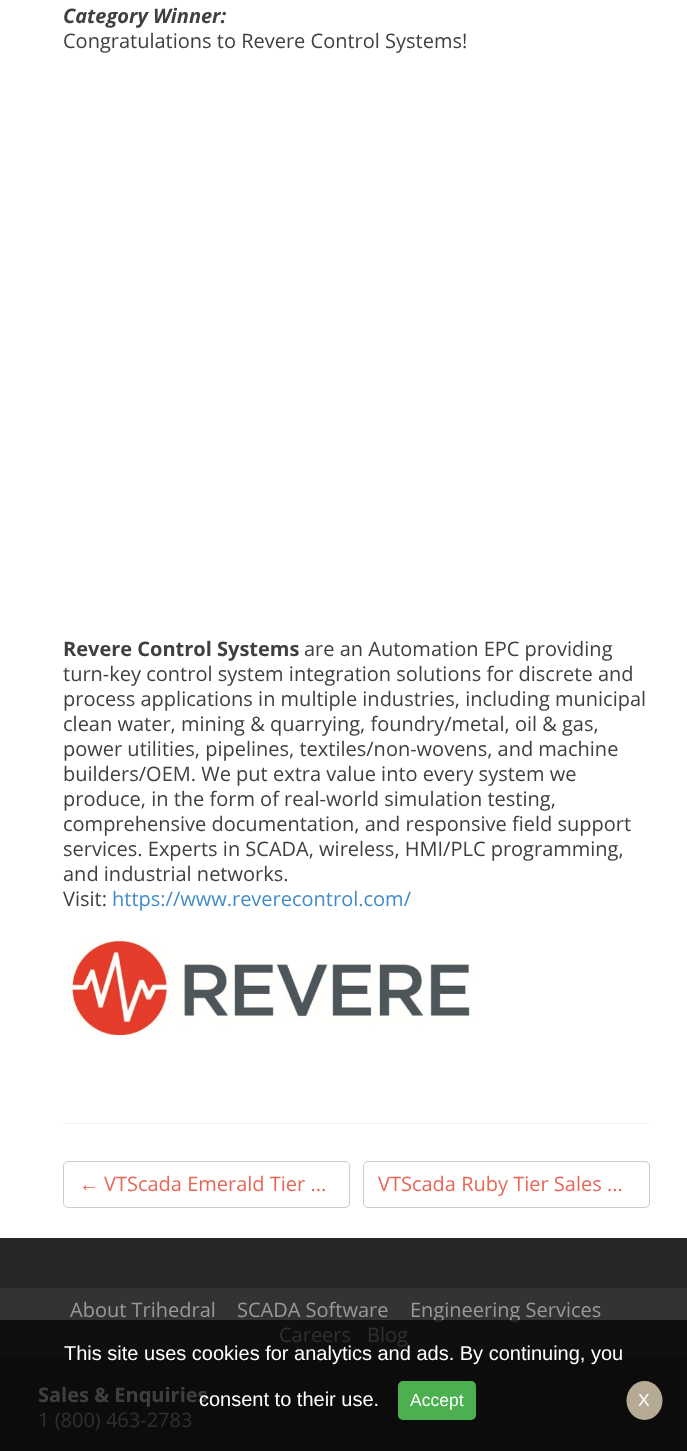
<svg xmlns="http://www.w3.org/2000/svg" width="687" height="1451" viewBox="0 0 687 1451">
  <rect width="100%" height="100%" fill="#ffffff"/>
  <rect x="63" y="1123" width="587" height="1" fill="#f2f2f2"/>
  <text x="63" y="23" font-family="Open Sans" font-size="20" font-weight="bold" font-style="italic" fill="#404040">Category Winner:</text>
  <text x="63" y="48" font-family="Open Sans" font-size="20" fill="#404040">Congratulations to Revere Control Systems!</text>
  <text x="63" y="656" font-family="Open Sans" font-size="20" font-weight="bold" fill="#404040">Revere Control Systems</text>
  <text x="304" y="656" font-family="Open Sans" font-size="20" fill="#404040">are an Automation EPC providing</text>
  <text x="63" y="681" font-family="Open Sans" font-size="20" fill="#404040">turn-key control system integration solutions for discrete and</text>
  <text x="63" y="706" font-family="Open Sans" font-size="20" fill="#404040">process applications in multiple industries, including municipal</text>
  <text x="63" y="731" font-family="Open Sans" font-size="20" fill="#404040">clean water, mining &amp; quarrying, foundry/metal, oil &amp; gas,</text>
  <text x="63" y="756" font-family="Open Sans" font-size="20" fill="#404040">power utilities, pipelines, textiles/non-wovens, and machine</text>
  <text x="63" y="781" font-family="Open Sans" font-size="20" fill="#404040">builders/OEM. We put extra value into every system we</text>
  <text x="63" y="806" font-family="Open Sans" font-size="20" fill="#404040">produce, in the form of real-world simulation testing,</text>
  <text x="63" y="831" font-family="Open Sans" font-size="20" fill="#404040">comprehensive documentation, and responsive field support</text>
  <text x="63" y="856" font-family="Open Sans" font-size="20" fill="#404040">services. Experts in SCADA, wireless, HMI/PLC programming,</text>
  <text x="63" y="881" font-family="Open Sans" font-size="20" fill="#404040">and industrial networks.</text>
  <text x="63" y="906" font-family="Open Sans" font-size="20" fill="#404040">Visit:</text>
  <text x="112" y="906" font-family="Open Sans" font-size="20" fill="#428bca">https://www.reverecontrol.com/</text>
  <image x="67" y="941" width="406" height="94" href="img1.png"/>
  <rect x="63.5" y="1161.5" width="286" height="46" rx="4.5" fill="none" stroke="#cccccc"/>
  <text x="79" y="1191" font-family="Liberation Sans" font-size="20" fill="#e96656">←</text>
  <text x="104" y="1191" font-family="Open Sans" font-size="20" fill="#e96656">VTScada Emerald Tier ...</text>
  <rect x="363.5" y="1161.5" width="286" height="46" rx="4.5" fill="none" stroke="#cccccc"/>
  <text x="378" y="1191" font-family="Open Sans" font-size="20" fill="#e96656">VTScada Ruby Tier Sales ...</text>
  <rect x="0" y="1238" width="687" height="213" fill="#272727"/>
  <rect x="0" y="1288" width="687" height="70" fill="#333333"/>
  <text x="70" y="1317" font-family="Open Sans" font-size="20" fill="#999999">About Trihedral</text>
  <text x="237" y="1317" font-family="Open Sans" font-size="20" fill="#999999">SCADA Software</text>
  <text x="410" y="1317" font-family="Open Sans" font-size="20" fill="#999999">Engineering Services</text>
  <text x="279" y="1342" font-family="Open Sans" font-size="20" fill="#999999">Careers</text>
  <text x="367" y="1342" font-family="Open Sans" font-size="20" fill="#999999">Blog</text>
  <text x="38" y="1402" font-family="Open Sans" font-size="20" font-weight="bold" fill="#cccccc">Sales &amp; Enquiries</text>
  <text x="38" y="1427" font-family="Open Sans" font-size="20" fill="#999999">1 (800) 463-2783</text>
  <rect x="0" y="1320" width="687" height="131" fill="#000000" fill-opacity="0.69"/>
  <text x="64" y="1360" font-family="Liberation Sans" font-size="20" fill="#ffffff">This site uses cookies for analytics and ads. By continuing, you</text>
  <text x="199" y="1406" font-family="Liberation Sans" font-size="20" fill="#ffffff">consent to their use.</text>
  <rect x="398" y="1381" width="78" height="39" rx="5" fill="#4caf50"/>
  <text x="410" y="1406" font-family="Liberation Sans" font-size="17.5" fill="#ffffff">Accept</text>
  <ellipse cx="644.5" cy="1400.5" rx="18" ry="19.5" fill="#b6aa94"/>
  <text x="638" y="1406" font-family="Liberation Sans" font-size="17.5" fill="#ffffff">X</text>
</svg>
